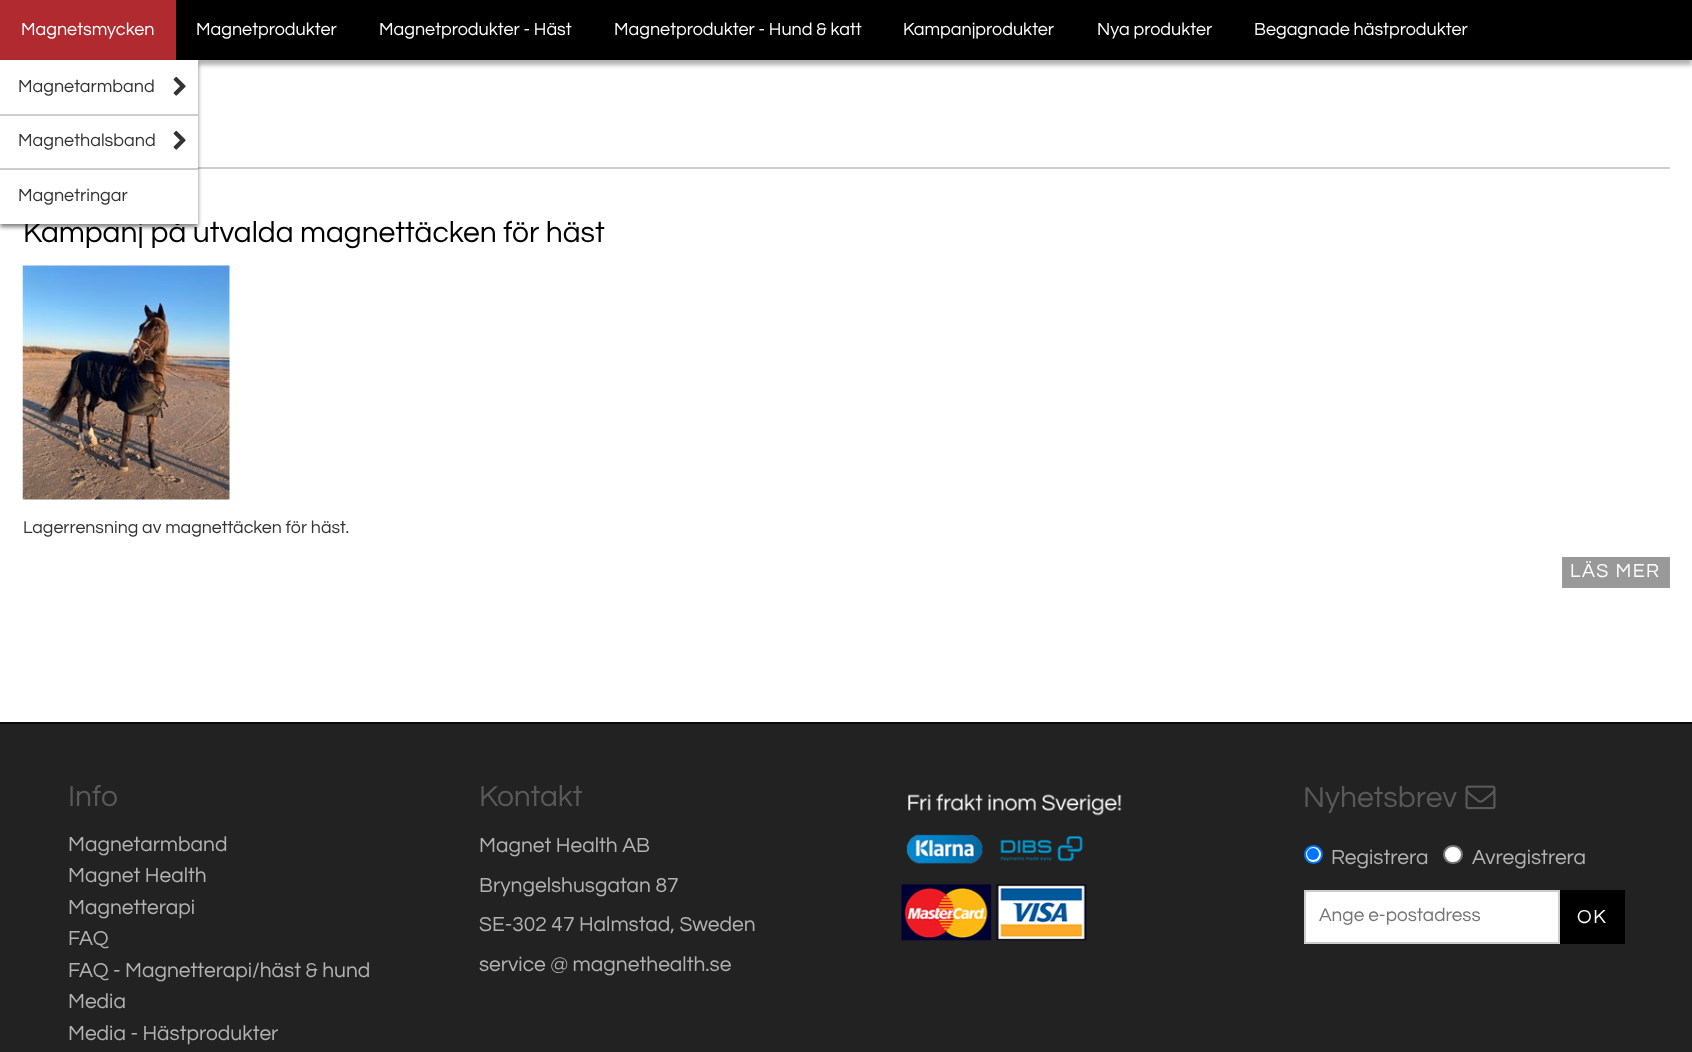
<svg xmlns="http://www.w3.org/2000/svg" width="1692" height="1052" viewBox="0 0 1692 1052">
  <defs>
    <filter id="blur1" x="-50%" y="-200%" width="200%" height="500%"><feGaussianBlur stdDeviation="2"/></filter>
  </defs>
  <rect width="100%" height="100%" fill="#ffffff"/>
  <rect x="0" y="5" width="1692" height="60" fill="#000000" fill-opacity="0.3" filter="url(#blur1)"/>
  <rect x="176" y="0" width="1516" height="60" fill="#000000"/>
  <rect x="0" y="0" width="176" height="60" fill="#b02a30"/>
  <text x="21" y="35" font-family="Questrial" font-size="18" fill="#ffffff">Magnetsmycken</text>
  <rect x="198" y="167" width="1472" height="2" fill="#cdcdcd"/>
  <rect x="0" y="63" width="198" height="164" fill="#000000" fill-opacity="0.5" filter="url(#blur1)"/>
  <rect x="0" y="60" width="198" height="54" fill="#ffffff"/>
  <rect x="0" y="114" width="198" height="2" fill="#cdcdcd"/>
  <text x="18" y="92" font-family="Questrial" font-size="18" fill="#333333">Magnetarmband</text>
  <image x="173" y="76" width="13" height="20" href="img1.png"/>
  <rect x="0" y="116" width="198" height="52" fill="#ffffff"/>
  <rect x="0" y="168" width="198" height="2" fill="#cdcdcd"/>
  <text x="18" y="146" font-family="Questrial" font-size="18" fill="#333333">Magnethalsband</text>
  <image x="173" y="130" width="13" height="20" href="img1.png"/>
  <text x="23" y="242" font-family="Questrial" font-size="30" fill="#000000">Kampanj på utvalda magnettäcken för häst</text>
  <rect x="0" y="170" width="198" height="54" fill="#ffffff"/>
  <text x="18" y="201" font-family="Questrial" font-size="18" fill="#333333">Magnetringar</text>
  <text x="196" y="35" font-family="Questrial" font-size="18" fill="#ffffff">Magnetprodukter</text>
  <text x="379" y="35" font-family="Questrial" font-size="18" fill="#ffffff">Magnetprodukter - Häst</text>
  <text x="614" y="35" font-family="Questrial" font-size="18" fill="#ffffff">Magnetprodukter - Hund &amp; katt</text>
  <text x="903" y="35" font-family="Questrial" font-size="18" fill="#ffffff">Kampanjprodukter</text>
  <text x="1097" y="35" font-family="Questrial" font-size="18" fill="#ffffff">Nya produkter</text>
  <text x="1254" y="35" font-family="Questrial" font-size="18" fill="#ffffff">Begagnade hästprodukter</text>
  <image x="22" y="265" width="208" height="235" href="img2.png"/>
  <text x="23" y="533" font-family="Questrial" font-size="17.8" fill="#333333">Lagerrensning av magnettäcken för häst.</text>
  <rect x="1562" y="557" width="108" height="31" fill="#999999"/>
  <text x="1570" y="577" font-family="Questrial" font-size="19.5" letter-spacing="1.5" fill="#ffffff">LÄS MER</text>
  <rect x="0" y="724" width="1692" height="328" fill="#222222"/>
  <rect x="0" y="722" width="1692" height="2" fill="#090909"/>
  <text x="68" y="806" font-family="Questrial" font-size="30" fill="#595959">Info</text>
  <text x="68" y="851" font-family="Questrial" font-size="21" fill="#b2b2b2">Magnetarmband</text>
  <text x="68" y="882" font-family="Questrial" font-size="21" fill="#b2b2b2">Magnet Health</text>
  <text x="68" y="914" font-family="Questrial" font-size="21" fill="#b2b2b2">Magnetterapi</text>
  <text x="68" y="945" font-family="Questrial" font-size="21" fill="#b2b2b2">FAQ</text>
  <text x="68" y="977" font-family="Questrial" font-size="21" fill="#b2b2b2">FAQ - Magnetterapi/häst &amp; hund</text>
  <text x="68" y="1008" font-family="Questrial" font-size="21" fill="#b2b2b2">Media</text>
  <text x="68" y="1040" font-family="Questrial" font-size="21" fill="#b2b2b2">Media - Hästprodukter</text>
  <text x="479" y="806" font-family="Questrial" font-size="30" fill="#595959">Kontakt</text>
  <text x="479" y="852" font-family="Questrial" font-size="21" fill="#b2b2b2">Magnet Health AB</text>
  <text x="479" y="892" font-family="Questrial" font-size="21" fill="#b2b2b2">Bryngelshusgatan 87</text>
  <text x="479" y="931" font-family="Questrial" font-size="21" fill="#b2b2b2">SE-302 47 Halmstad, Sweden</text>
  <text x="479" y="971" font-family="Questrial" font-size="21" fill="#b2b2b2">service @ magnethealth.se</text>
  <image x="901" y="793" width="221" height="148" href="img3.png"/>
  <text x="1303" y="807" font-family="Questrial" font-size="30" fill="#595959">Nyhetsbrev</text>
  <image x="1465" y="785" width="31" height="25" href="img4.png"/>
  <circle cx="1313.5" cy="854.5" r="8.5" fill="#ffffff" stroke="#0075ff" stroke-width="2"/>
  <circle cx="1313" cy="854" r="6" fill="#0075ff"/>
  <text x="1331" y="864" font-family="Questrial" font-size="21" fill="#b2b2b2">Registrera</text>
  <rect x="1444" y="846" width="18" height="17" rx="8.5" fill="#ffffff" stroke="#767676" stroke-width="2"/>
  <text x="1472" y="864" font-family="Questrial" font-size="21" fill="#b2b2b2">Avregistrera</text>
  <rect x="1305" y="891" width="254" height="52" fill="#ffffff" stroke="#cdcdcd" stroke-width="2"/>
  <text x="1319" y="921" font-family="Questrial" font-size="19" fill="#757575">Ange e-postadress</text>
  <rect x="1560" y="890" width="65" height="54" fill="#000000"/>
  <text x="1577" y="923" font-family="Questrial" font-size="19.5" letter-spacing="1.5" fill="#ffffff">OK</text>
</svg>
